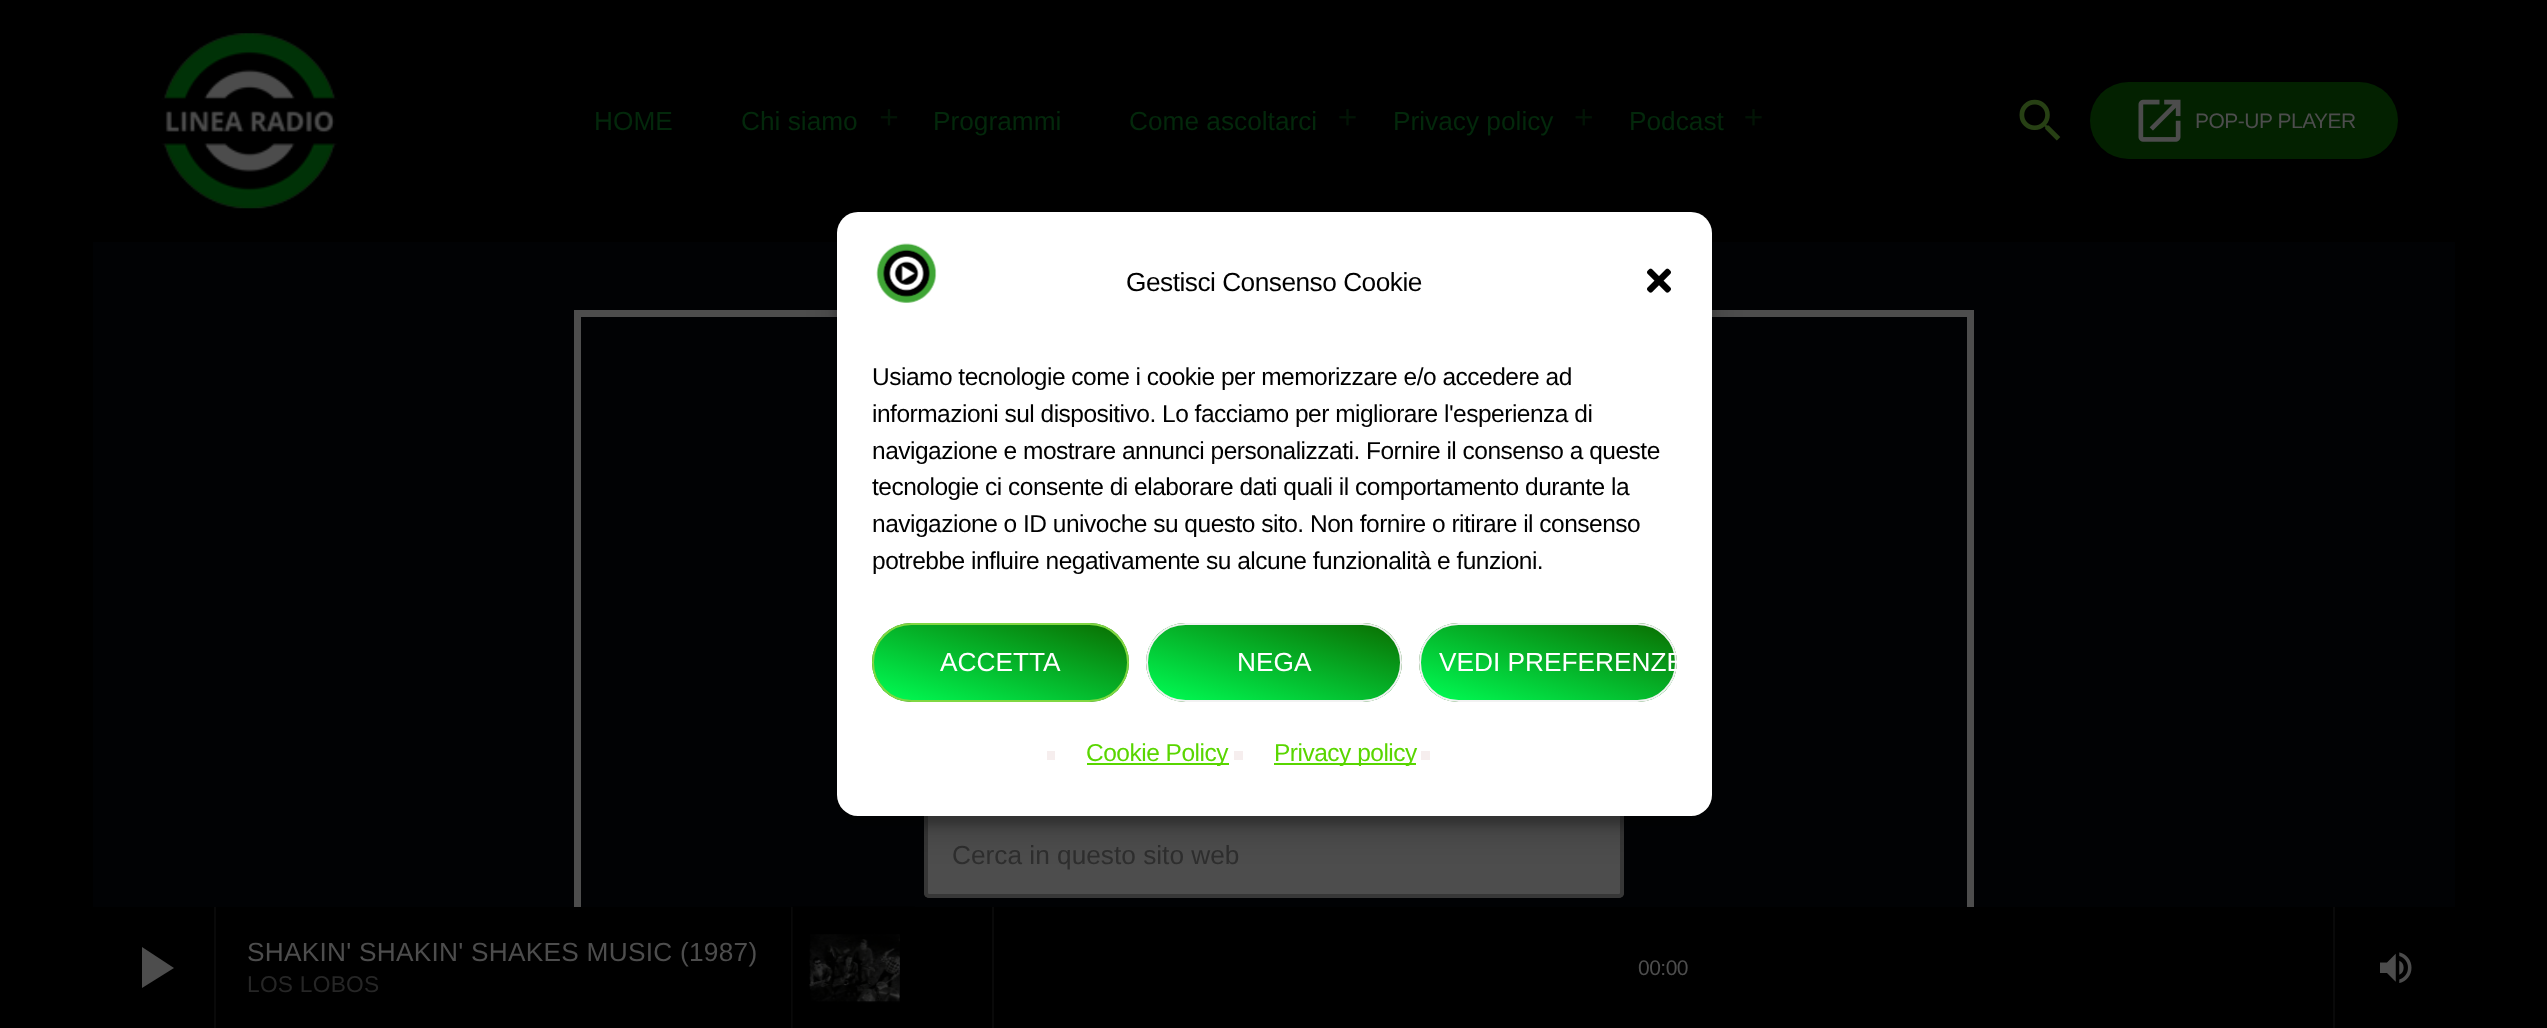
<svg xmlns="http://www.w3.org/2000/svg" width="2547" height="1028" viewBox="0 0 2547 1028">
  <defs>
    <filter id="blur1" x="-50%" y="-200%" width="200%" height="500%"><feGaussianBlur stdDeviation="5"/></filter>
    <filter id="blur2" x="-50%" y="-200%" width="200%" height="500%"><feGaussianBlur stdDeviation="17.5"/></filter>
    <clipPath id="clip1"><rect x="872" y="623" width="257" height="79" rx="39.5"/></clipPath>
    <linearGradient id="g1" gradientUnits="userSpaceOnUse" x1="1021" y1="593" x2="979" y2="733"><stop offset="0" stop-color="#00ff55" stop-opacity="0"/><stop offset="1" stop-color="#00ff55"/></linearGradient>
    <clipPath id="clip2"><rect x="1146" y="623" width="256" height="79" rx="39.5"/></clipPath>
    <linearGradient id="g2" gradientUnits="userSpaceOnUse" x1="1295" y1="593" x2="1253" y2="733"><stop offset="0" stop-color="#00ff55" stop-opacity="0"/><stop offset="1" stop-color="#00ff55"/></linearGradient>
    <clipPath id="clip3"><rect x="1419" y="623" width="258" height="79" rx="39.5"/></clipPath>
    <linearGradient id="g3" gradientUnits="userSpaceOnUse" x1="1569" y1="593" x2="1527" y2="733"><stop offset="0" stop-color="#00ff55" stop-opacity="0"/><stop offset="1" stop-color="#00ff55"/></linearGradient>
  </defs>
  <rect width="100%" height="100%" fill="#000000"/>
  <image x="161" y="33" width="177" height="176" href="img1.png"/>
  <text x="594" y="130" font-family="Liberation Sans" font-size="26.25" fill="#03280b">HOME</text>
  <text x="741" y="130" font-family="Liberation Sans" font-size="26.25" fill="#03280b">Chi siamo</text>
  <image x="880" y="109" width="18" height="17" href="img2.png"/>
  <text x="933" y="130" font-family="Liberation Sans" font-size="26.25" fill="#03280b">Programmi</text>
  <text x="1129" y="130" font-family="Liberation Sans" font-size="26.25" fill="#03280b">Come ascoltarci</text>
  <image x="1339" y="109" width="17" height="17" href="img3.png"/>
  <text x="1393" y="130" font-family="Liberation Sans" font-size="26.25" fill="#03280b">Privacy policy</text>
  <image x="1575" y="109" width="17" height="17" href="img4.png"/>
  <text x="1629" y="130" font-family="Liberation Sans" font-size="26.25" fill="#03280b">Podcast</text>
  <image x="1745" y="109" width="17" height="17" href="img3.png"/>
  <image x="2019" y="99" width="42" height="42" href="img5.png"/>
  <rect x="2090" y="82" width="308" height="77" rx="38.5" fill="#032100"/>
  <image x="2138" y="99" width="43" height="43" href="img6.png"/>
  <text x="2195" y="128" font-family="Liberation Sans" font-size="21" letter-spacing="-0.5" fill="#4d4d4d">POP-UP PLAYER</text>
  <rect x="93" y="242" width="2362" height="665" fill="#010204"/>
  <rect x="577.5" y="313.5" width="1393" height="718" fill="none" stroke="#4d4d4d" stroke-width="7"/>
  <rect x="924" y="810" width="700" height="88" rx="5" fill="#4d4d4d"/>
  <rect x="926" y="812" width="696" height="84" rx="3" fill="none" stroke="#2d2d2d" stroke-opacity="0.7" stroke-width="4"/>
  <text x="952" y="864" font-family="Liberation Sans" font-size="26.25" fill="#2e2e2e">Cerca in questo sito web</text>
  <rect x="574" y="907" width="1400" height="121" fill="#000000"/>
  <rect x="791" y="907" width="2" height="121" fill="#090909"/>
  <rect x="214" y="907" width="2" height="121" fill="#090909"/>
  <path d="M142 947L174 968L142 988Z" fill="#4d4d4d"/>
  <text x="247" y="961" font-family="Liberation Sans" font-size="26.25" letter-spacing="0.25" fill="#4d4d4d">SHAKIN' SHAKIN' SHAKES MUSIC (1987)</text>
  <text x="247" y="992" font-family="Liberation Sans" font-size="22.75" letter-spacing="0.25" fill="#262626">LOS LOBOS</text>
  <image x="792" y="906" width="123" height="122" href="img7.png"/>
  <rect x="992" y="907" width="2" height="121" fill="#090909"/>
  <text x="1638" y="975" font-family="Liberation Sans" font-size="21" letter-spacing="-0.5" fill="#4d4d4d">00:00</text>
  <rect x="2333" y="907" width="2" height="121" fill="#090909"/>
  <image x="2380" y="952" width="32" height="31" href="img8.png"/>
  <rect x="837" y="222" width="875" height="604" rx="21" fill="#000000" fill-opacity="0.23" filter="url(#blur1)"/>
  <rect x="837" y="229" width="875" height="604" rx="21" fill="#000000" fill-opacity="0.19" filter="url(#blur2)"/>
  <rect x="837" y="212" width="875" height="604" rx="21" fill="#ffffff"/>
  <image x="876" y="243" width="61" height="60" href="img9.png"/>
  <text x="1126" y="291" font-family="Liberation Sans" font-size="26.25" letter-spacing="-0.5" fill="#000000">Gestisci Consenso Cookie</text>
  <image x="1647" y="268" width="24" height="25" href="img10.png"/>
  <text x="872" y="385" font-family="Liberation Sans" font-size="24.5" letter-spacing="-0.5" fill="#000000">Usiamo tecnologie come i cookie per memorizzare e/o accedere ad</text>
  <text x="872" y="422" font-family="Liberation Sans" font-size="24.5" letter-spacing="-0.5" fill="#000000">informazioni sul dispositivo. Lo facciamo per migliorare l'esperienza di</text>
  <text x="872" y="459" font-family="Liberation Sans" font-size="24.5" letter-spacing="-0.5" fill="#000000">navigazione e mostrare annunci personalizzati. Fornire il consenso a queste</text>
  <text x="872" y="495" font-family="Liberation Sans" font-size="24.5" letter-spacing="-0.5" fill="#000000">tecnologie ci consente di elaborare dati quali il comportamento durante la</text>
  <text x="872" y="532" font-family="Liberation Sans" font-size="24.5" letter-spacing="-0.5" fill="#000000">navigazione o ID univoche su questo sito. Non fornire o ritirare il consenso</text>
  <text x="872" y="569" font-family="Liberation Sans" font-size="24.5" letter-spacing="-0.5" fill="#000000">potrebbe influire negativamente su alcune funzionalità e funzioni.</text>
  <rect x="872" y="623" width="257" height="79" rx="39.5" fill="#0a6e01"/>
  <g clip-path="url(#clip1)">
    <rect x="873" y="625" width="254" height="75" fill="url(#g1)"/>
  </g>
  <rect x="873" y="624" width="255" height="77" rx="38.5" fill="none" stroke="#81d742" stroke-width="2"/>
  <text x="940" y="671" font-family="Liberation Sans" font-size="26.25" fill="#ffffff">ACCETTA</text>
  <rect x="1146" y="623" width="256" height="79" rx="39.5" fill="#0a6e01"/>
  <g clip-path="url(#clip2)">
    <rect x="1148" y="625" width="252" height="75" fill="url(#g2)"/>
  </g>
  <rect x="1147" y="624" width="254" height="77" rx="38.5" fill="none" stroke="#f2f2f2" stroke-width="2"/>
  <text x="1237" y="671" font-family="Liberation Sans" font-size="26.25" fill="#ffffff">NEGA</text>
  <rect x="1419" y="623" width="258" height="79" rx="39.5" fill="#0a6e01"/>
  <g clip-path="url(#clip3)">
    <rect x="1421" y="625" width="254" height="75" fill="url(#g3)"/>
  </g>
  <rect x="1420" y="624" width="256" height="77" rx="38.5" fill="none" stroke="#f2f2f2" stroke-width="2"/>
  <text x="1439" y="671" font-family="Liberation Sans" font-size="26.25" fill="#ffffff">VEDI PREFERENZE</text>
  <rect x="1047" y="751" width="8" height="9" fill="#f6eeee"/>
  <rect x="1087" y="763" width="142" height="2" fill="#59d600"/>
  <text x="1086" y="761" font-family="Liberation Sans" font-size="24.5" letter-spacing="-0.5" fill="#59d600">Cookie Policy</text>
  <rect x="1234" y="751" width="9" height="9" fill="#f6eeee"/>
  <rect x="1274" y="763" width="142" height="2" fill="#59d600"/>
  <text x="1274" y="761" font-family="Liberation Sans" font-size="24.5" letter-spacing="-0.5" fill="#59d600">Privacy policy</text>
  <rect x="1421" y="751" width="9" height="9" fill="#f6eeee"/>
</svg>
